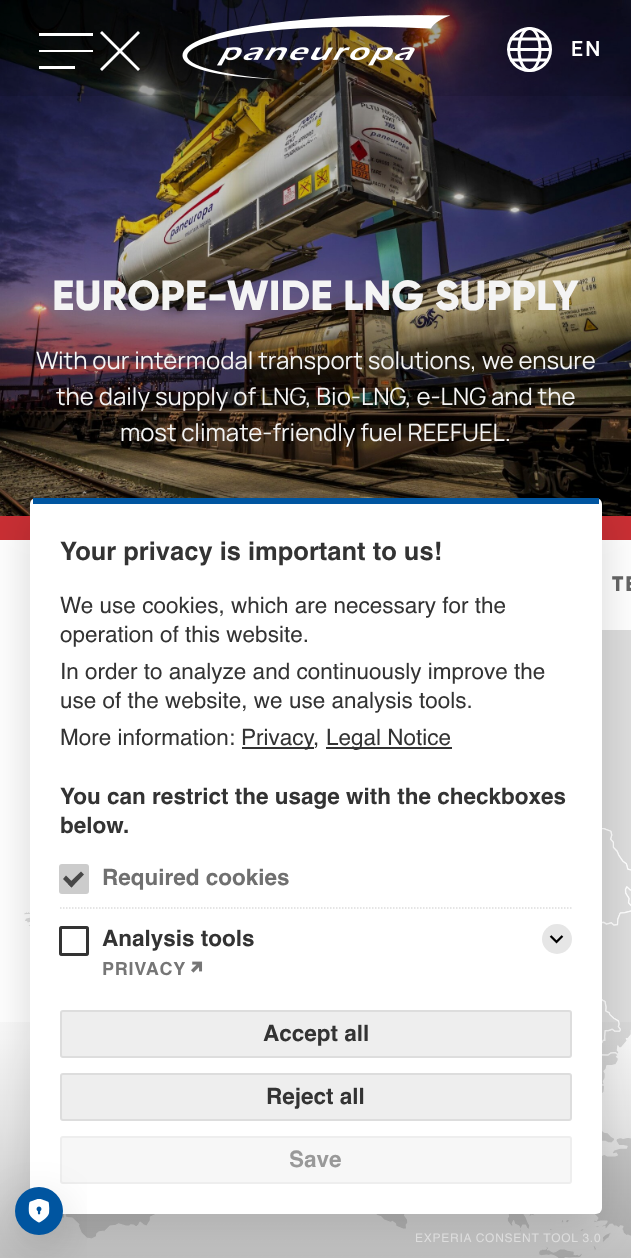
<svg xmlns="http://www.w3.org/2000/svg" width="631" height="1258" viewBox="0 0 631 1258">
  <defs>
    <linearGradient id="g1" gradientUnits="userSpaceOnUse" x1="316" y1="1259" x2="316" y2="959"><stop offset="0" stop-color="#000000" stop-opacity="0.25"/><stop offset="0.19" stop-color="#000000" stop-opacity="0.18"/><stop offset="0.34" stop-color="#000000" stop-opacity="0.13"/><stop offset="0.47" stop-color="#000000" stop-opacity="0.09"/><stop offset="0.56" stop-color="#000000" stop-opacity="0.07"/><stop offset="0.65" stop-color="#000000" stop-opacity="0.05"/><stop offset="0.73" stop-color="#000000" stop-opacity="0.03"/><stop offset="0.8" stop-color="#000000" stop-opacity="0.02"/><stop offset="0.86" stop-color="#000000" stop-opacity="0.01"/><stop offset="0.91" stop-color="#000000" stop-opacity="0"/><stop offset="0.95" stop-color="#000000" stop-opacity="0"/><stop offset="0.98" stop-color="#000000" stop-opacity="0"/><stop offset="1" stop-color="#000000" stop-opacity="0"/></linearGradient>
    <filter id="blur1" x="-50%" y="-200%" width="200%" height="500%"><feGaussianBlur stdDeviation="22.5"/></filter>
  </defs>
  <rect width="100%" height="100%" fill="#c92f34"/>
  <image x="0" y="0" width="631" height="516" href="img2.png"/>
  <rect x="0" y="0" width="631" height="96" fill="#000000" fill-opacity="0.1"/>
  <rect x="39" y="33" width="54" height="3" fill="#ffffff"/>
  <rect x="39" y="50" width="54" height="2" fill="#ffffff"/>
  <rect x="39" y="66" width="36" height="3" fill="#ffffff"/>
  <path d="M100 69L138 31L140 33L102 71Z" fill="#ffffff"/>
  <path d="M138 71L100 33L102 31L140 69Z" fill="#ffffff"/>
  <image x="182" y="15" width="268" height="65" href="img1.png"/>
  <circle cx="529.5" cy="49.5" r="21" fill="none" stroke="#ffffff" stroke-width="3"/>
  <ellipse cx="529.5" cy="49.5" rx="10.5" ry="21" fill="none" stroke="#ffffff" stroke-width="3"/>
  <path d="M510.5 39H548M510.5 60H548" fill="none" stroke="#ffffff" stroke-width="3"/>
  <rect x="508" y="48" width="42" height="3" fill="#ffffff"/>
  <text x="571" y="56" font-family="Manrope" font-size="21" font-weight="bold" letter-spacing="2" fill="#ffffff">EN</text>
  <text x="52" y="310" font-family="Gilroy" font-size="42" font-weight="800" fill="#f4f4f4">EUROPE-WIDE LNG SUPPLY</text>
  <text x="36" y="369" font-family="Manrope" font-size="24" fill="#f4f4f4">With our intermodal transport solutions, we ensure</text>
  <text x="56" y="405" font-family="Manrope" font-size="24" fill="#f4f4f4">the daily supply of LNG, Bio-LNG, e-LNG and the</text>
  <text x="120" y="441" font-family="Manrope" font-size="24" fill="#f4f4f4">most climate-friendly fuel REEFUEL.</text>
  <rect x="0" y="540" width="631" height="718" fill="#ffffff"/>
  <text x="612" y="591" font-family="Gilroy" font-size="21" font-weight="800" letter-spacing="2" fill="#656565">TE</text>
  <image x="24" y="630" width="607" height="628" href="img3.png"/>
  <rect x="0" y="1022" width="631" height="236" fill="url(#g1)"/>
  <rect x="30" y="513" width="572" height="716" rx="6" fill="#000000" fill-opacity="0.16" filter="url(#blur1)"/>
  <rect x="30" y="498" width="572" height="716" rx="6" fill="#ffffff"/>
  <rect x="33" y="498" width="566" height="6" fill="#0055a0"/>
  <text x="60" y="560" font-family="Helvetica" font-size="25.5" font-weight="bold" fill="#333333">Your privacy is important to us!</text>
  <text x="60" y="613" font-family="Helvetica" font-size="22.5" fill="#333333">We use cookies, which are necessary for the</text>
  <text x="60" y="642" font-family="Helvetica" font-size="22.5" fill="#333333">operation of this website.</text>
  <text x="60" y="679" font-family="Helvetica" font-size="22.5" fill="#333333">In order to analyze and continuously improve the</text>
  <text x="60" y="708" font-family="Helvetica" font-size="22.5" fill="#333333">use of the website, we use analysis tools.</text>
  <text x="60" y="745" font-family="Helvetica" font-size="22.5" fill="#333333">More information:</text>
  <rect x="242" y="747" width="72" height="2" fill="#333333"/>
  <text x="241" y="745" font-family="Helvetica" font-size="22.5" fill="#333333">Privacy</text>
  <text x="313" y="745" font-family="Helvetica" font-size="22.5" fill="#333333">,</text>
  <rect x="326" y="747" width="126" height="2" fill="#333333"/>
  <text x="326" y="745" font-family="Helvetica" font-size="22.5" fill="#333333">Legal Notice</text>
  <text x="60" y="804" font-family="Helvetica" font-size="22.5" font-weight="bold" fill="#333333">You can restrict the usage with the checkboxes</text>
  <text x="60" y="833" font-family="Helvetica" font-size="22.5" font-weight="bold" fill="#333333">below.</text>
  <rect x="59" y="864" width="30" height="30" rx="3" fill="#cccccc"/>
  <path d="M81 871.5L84 874.5L71.5 887.5L68 884Z" fill="#474747"/>
  <path d="M66 875.5L74.5 884L71.5 887.5L63 879Z" fill="#474747"/>
  <text x="102" y="885" font-family="Helvetica" font-size="22.5" font-weight="bold" fill="#707070">Required cookies</text>
  <path d="M60 908H571.5" fill="none" stroke="#dddddd" stroke-width="1.5" stroke-dasharray="1.5 1.5"/>
  <rect x="60" y="927" width="28" height="28" rx="2" fill="none" stroke="#767676" stroke-width="2"/>
  <rect x="60.5" y="927.5" width="27" height="27" rx="1.5" fill="none" stroke="#333333" stroke-width="3"/>
  <text x="102" y="946" font-family="Helvetica" font-size="22.5" font-weight="bold" fill="#333333">Analysis tools</text>
  <text x="102" y="975" font-family="Helvetica" font-size="18" font-weight="bold" letter-spacing="0.75" fill="#767676">PRIVACY</text>
  <image x="191" y="961" width="12" height="12" href="img4.png"/>
  <circle cx="557" cy="939" r="15" fill="#e6e6e6"/>
  <image x="549" y="935" width="15" height="9" href="img5.png"/>
  <rect x="61" y="1011" width="510" height="46" rx="2" fill="#eeeeee" stroke="#dddddd" stroke-width="2"/>
  <text x="263" y="1041" font-family="Helvetica" font-size="22.5" font-weight="bold" fill="#333333">Accept all</text>
  <rect x="61" y="1074" width="510" height="46" rx="2" fill="#eeeeee" stroke="#dddddd" stroke-width="2"/>
  <text x="266" y="1104" font-family="Helvetica" font-size="22.5" font-weight="bold" fill="#333333">Reject all</text>
  <rect x="61" y="1137" width="510" height="46" rx="2" fill="#f7f7f7" stroke="#eeeeee" stroke-width="2"/>
  <text x="289" y="1167" font-family="Helvetica" font-size="22.5" font-weight="bold" fill="#999999">Save</text>
  <text x="415" y="1242" font-family="Helvetica" font-size="12" letter-spacing="0.75" fill="#dddddd">EXPERIA CONSENT TOOL 3.0</text>
  <rect x="15" y="1202" width="48" height="48" rx="24" fill="#000000" fill-opacity="0.16" filter="url(#blur1)"/>
  <circle cx="39" cy="1211" r="24" fill="#0055a0"/>
  <image x="28" y="1199" width="22" height="24" href="img6.png"/>
</svg>
